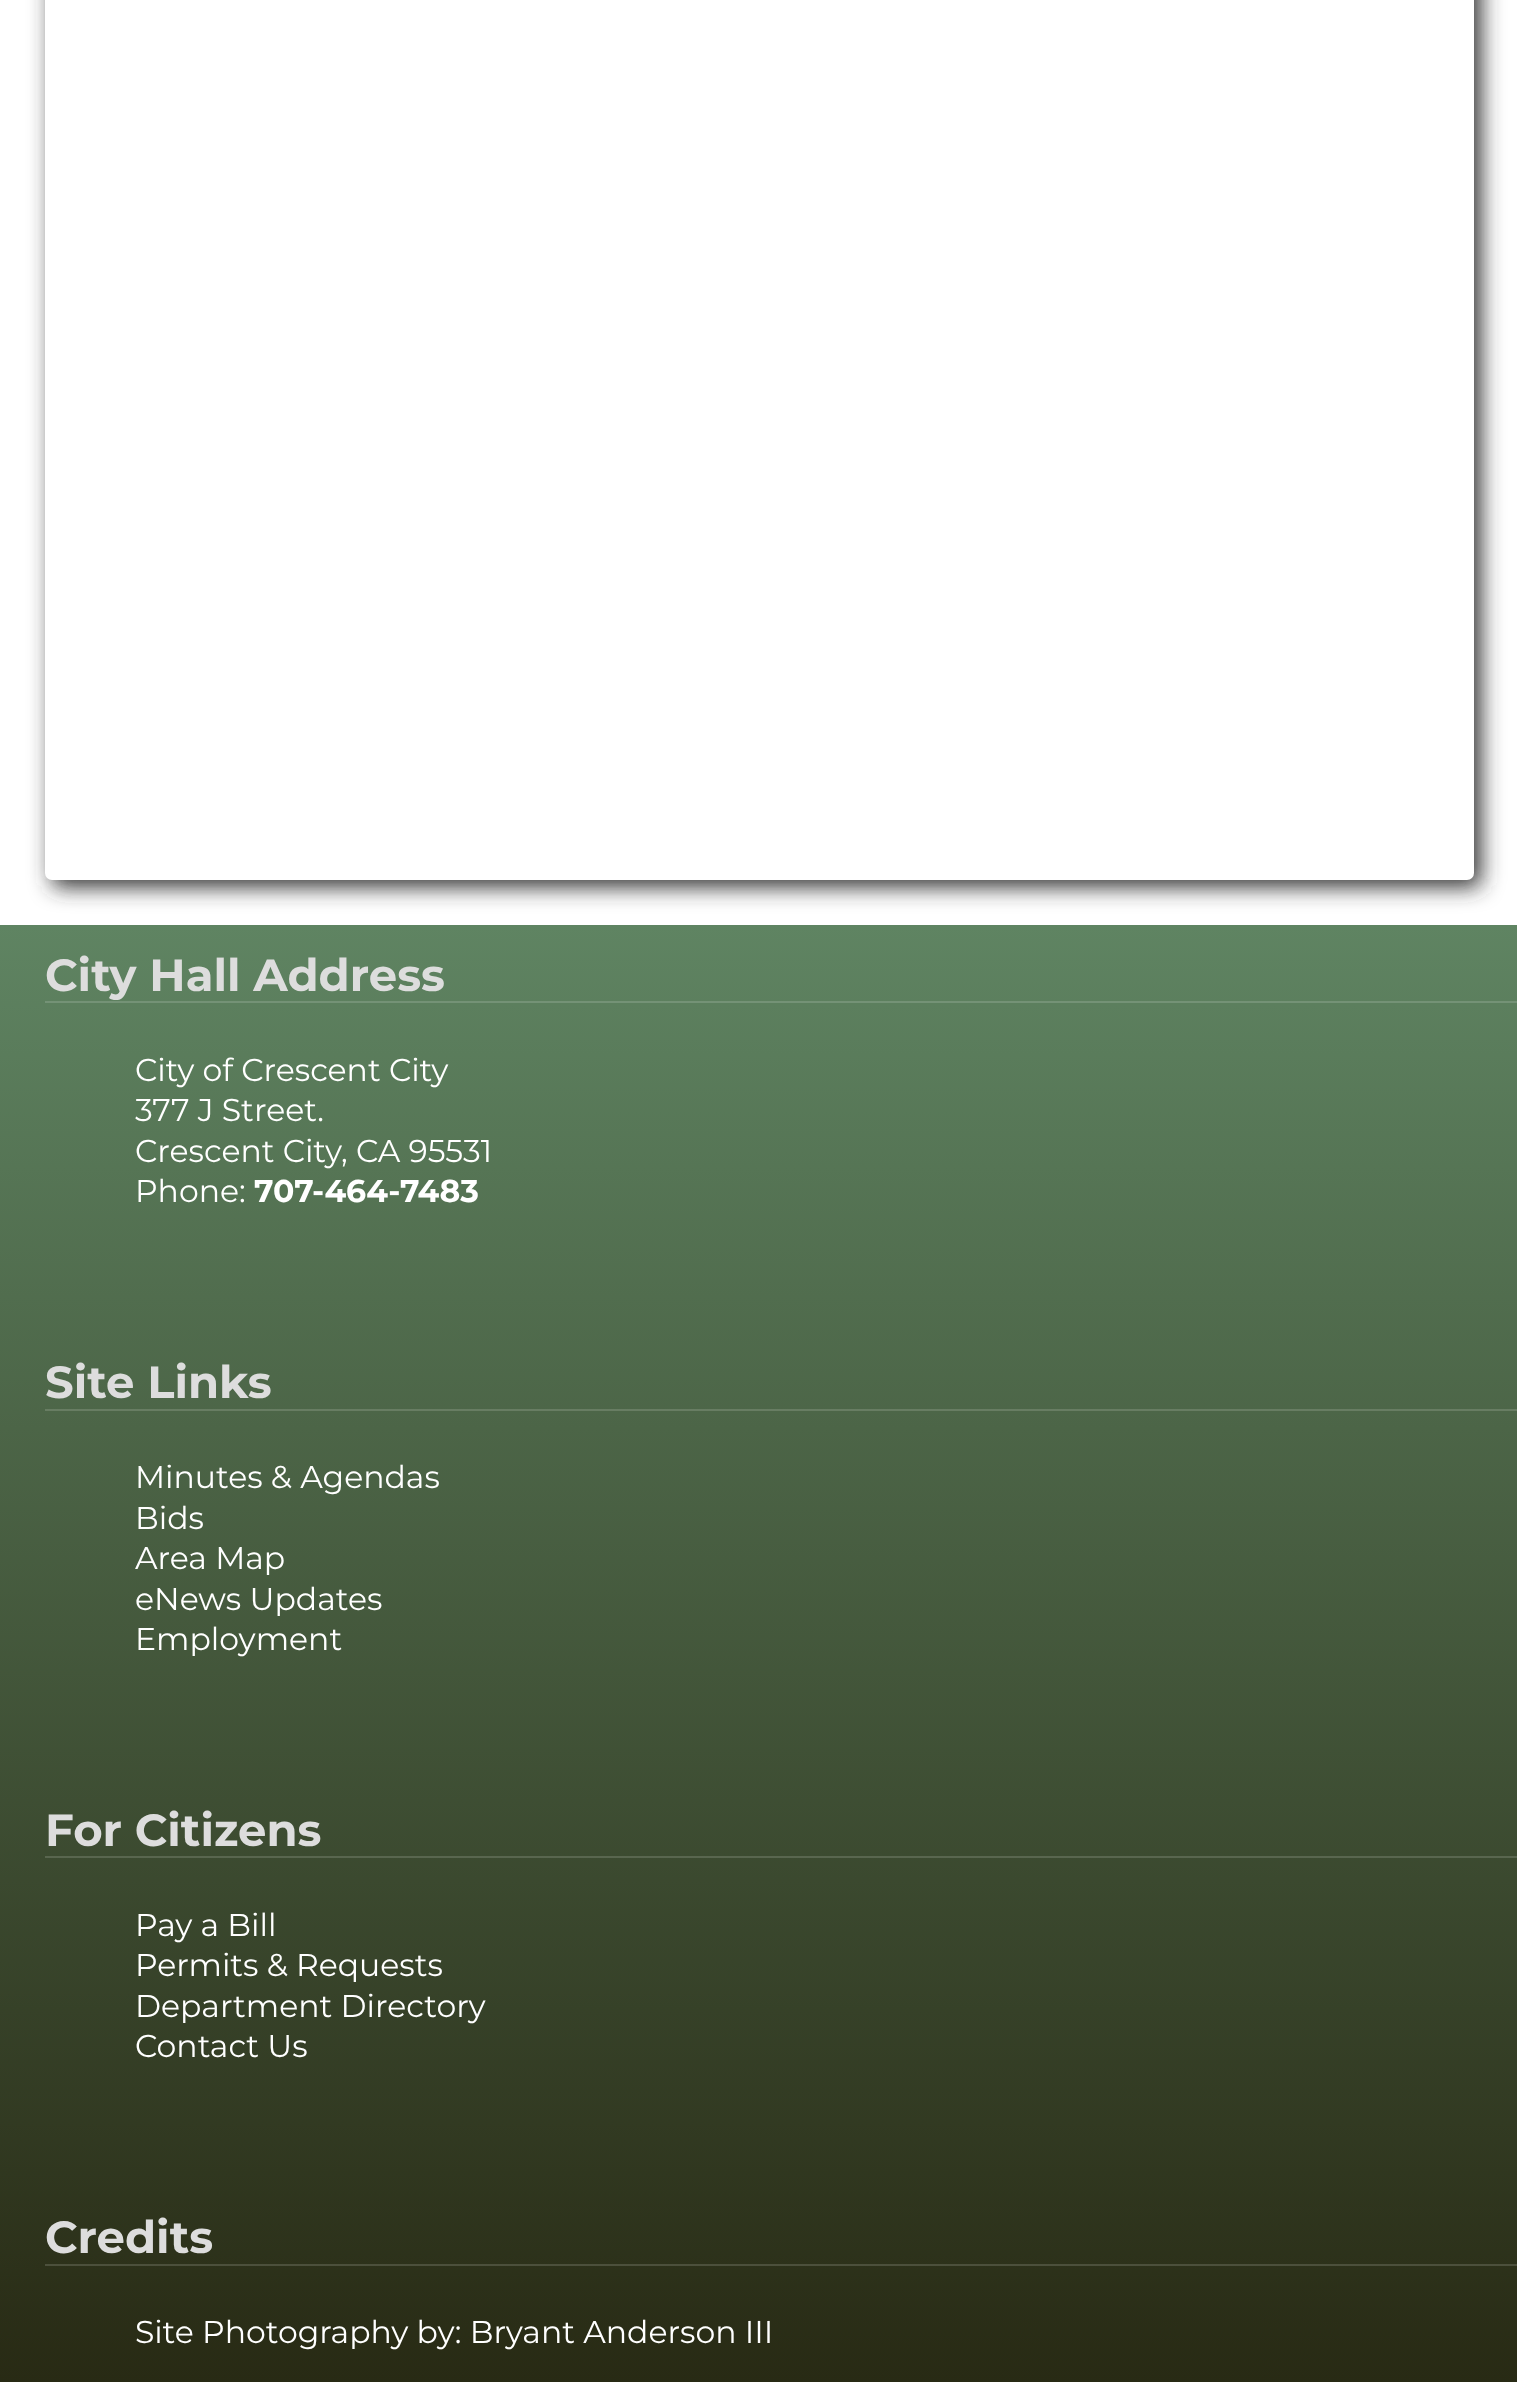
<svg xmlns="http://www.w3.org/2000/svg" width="1517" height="2382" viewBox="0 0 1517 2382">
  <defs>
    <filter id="blur1" x="-50%" y="-200%" width="200%" height="500%"><feGaussianBlur stdDeviation="11"/></filter>
    <linearGradient id="g1" gradientUnits="userSpaceOnUse" x1="759" y1="925" x2="759" y2="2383"><stop offset="0" stop-color="#5f8462"/><stop offset="1" stop-color="#282a14"/></linearGradient>
  </defs>
  <rect width="100%" height="100%" fill="#ffffff"/>
  <rect x="52" y="-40" width="1429" height="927" rx="7" fill="#303030" filter="url(#blur1)"/>
  <rect x="45" y="-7" width="1429" height="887" rx="7" fill="#ffffff"/>
  <rect x="0" y="925" width="1517" height="1457" fill="url(#g1)"/>
  <rect x="45" y="1001" width="1472" height="2" fill="#749276"/>
  <text x="45" y="991" font-family="Montserrat" font-size="45" font-weight="bold" fill="#dddddd">City Hall Address</text>
  <text x="135" y="1081" font-family="Montserrat" font-size="31.5" fill="#ffffff">City of Crescent City</text>
  <text x="135" y="1121" font-family="Montserrat" font-size="31.5" fill="#ffffff">377 J Street.</text>
  <text x="135" y="1162" font-family="Montserrat" font-size="31.5" fill="#ffffff">Crescent City, CA 95531</text>
  <text x="135" y="1202" font-family="Montserrat" font-size="31.5" fill="#ffffff">Phone:</text>
  <text x="254" y="1202" font-family="Montserrat" font-size="31.5" font-weight="bold" fill="#ffffff">707-464-7483</text>
  <rect x="45" y="1409" width="1472" height="2" fill="#687d63"/>
  <text x="45" y="1398" font-family="Montserrat" font-size="45" font-weight="bold" fill="#dddddd">Site Links</text>
  <text x="135" y="1488" font-family="Montserrat" font-size="31.5" fill="#ffffff">Minutes &amp; Agendas</text>
  <text x="135" y="1529" font-family="Montserrat" font-size="31.5" fill="#ffffff">Bids</text>
  <text x="135" y="1569" font-family="Montserrat" font-size="31.5" fill="#ffffff">Area Map</text>
  <text x="135" y="1610" font-family="Montserrat" font-size="31.5" fill="#ffffff">eNews Updates</text>
  <text x="135" y="1650" font-family="Montserrat" font-size="31.5" fill="#ffffff">Employment</text>
  <rect x="45" y="1856" width="1472" height="2" fill="#59664f"/>
  <text x="45" y="1846" font-family="Montserrat" font-size="45" font-weight="bold" fill="#dddddd">For Citizens</text>
  <text x="135" y="1936" font-family="Montserrat" font-size="31.5" fill="#ffffff">Pay a Bill</text>
  <text x="135" y="1976" font-family="Montserrat" font-size="31.5" fill="#ffffff">Permits &amp; Requests</text>
  <text x="135" y="2017" font-family="Montserrat" font-size="31.5" fill="#ffffff">Department Directory</text>
  <text x="135" y="2057" font-family="Montserrat" font-size="31.5" fill="#ffffff">Contact Us</text>
  <rect x="45" y="2264" width="1472" height="2" fill="#4c503c"/>
  <text x="45" y="2253" font-family="Montserrat" font-size="45" font-weight="bold" fill="#dddddd">Credits</text>
  <text x="135" y="2343" font-family="Montserrat" font-size="31.5" fill="#ffffff">Site Photography by: Bryant Anderson III</text>
</svg>
